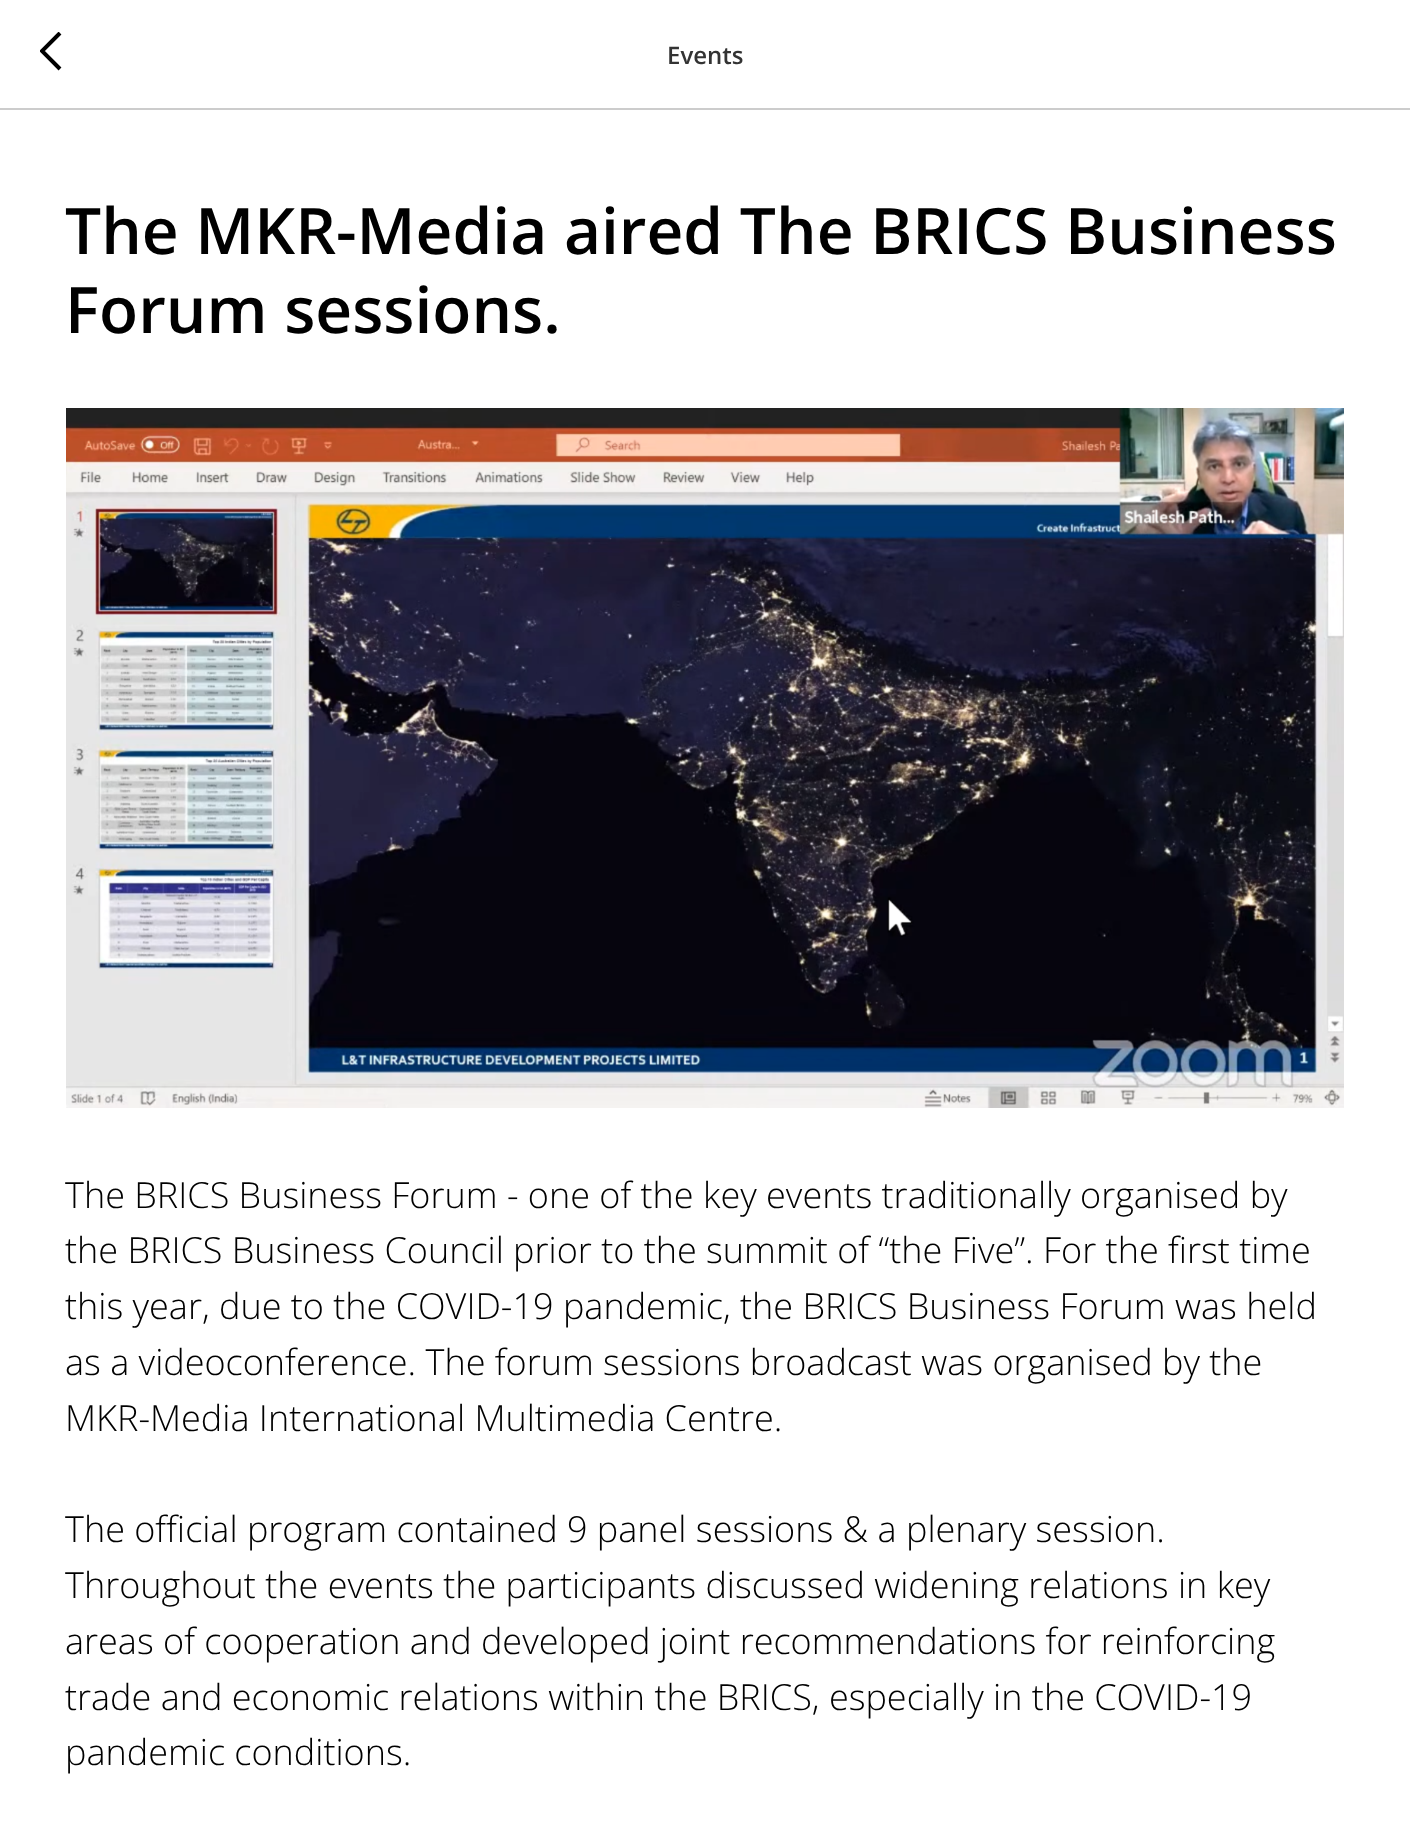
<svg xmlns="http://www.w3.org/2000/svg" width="1410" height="1839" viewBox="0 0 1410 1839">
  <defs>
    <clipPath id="clip1"><rect x="40" y="32" width="22" height="40"/></clipPath>
  </defs>
  <rect width="100%" height="100%" fill="#ffffff"/>
  <rect x="0" y="108" width="1410" height="2" fill="#cccccc"/>
  <g clip-path="url(#clip1)">
    <path d="M60 69L42 51L60 33" fill="none" stroke="#000000" stroke-width="4"/>
  </g>
  <text x="667" y="64" font-family="Open Sans" font-size="24" font-weight="600" fill="#333333">Events</text>
  <text x="65" y="254" font-family="Open Sans" font-size="64" font-weight="600" fill="#000000">The MKR-Media aired The BRICS Business</text>
  <text x="65" y="333" font-family="Open Sans" font-size="64" font-weight="600" fill="#000000">Forum sessions.</text>
  <image x="66" y="408" width="1278" height="700" href="img1.png"/>
  <text x="65" y="1208" font-family="Open Sans" font-size="36" font-weight="300" fill="#000000">The BRICS Business Forum - one of the key events traditionally organised by</text>
  <text x="65" y="1263" font-family="Open Sans" font-size="36" font-weight="300" fill="#000000">the BRICS Business Council prior to the summit of “the Five”. For the first time</text>
  <text x="65" y="1319" font-family="Open Sans" font-size="36" font-weight="300" fill="#000000">this year, due to the COVID-19 pandemic, the BRICS Business Forum was held</text>
  <text x="65" y="1375" font-family="Open Sans" font-size="36" font-weight="300" fill="#000000">as a videoconference. The forum sessions broadcast was organised by the</text>
  <text x="65" y="1431" font-family="Open Sans" font-size="36" font-weight="300" fill="#000000">MKR-Media International Multimedia Centre.</text>
  <text x="65" y="1542" font-family="Open Sans" font-size="36" font-weight="300" fill="#000000">The official program contained 9 panel sessions &amp; a plenary session.</text>
  <text x="65" y="1598" font-family="Open Sans" font-size="36" font-weight="300" fill="#000000">Throughout the events the participants discussed widening relations in key</text>
  <text x="65" y="1654" font-family="Open Sans" font-size="36" font-weight="300" fill="#000000">areas of cooperation and developed joint recommendations for reinforcing</text>
  <text x="65" y="1710" font-family="Open Sans" font-size="36" font-weight="300" fill="#000000">trade and economic relations within the BRICS, especially in the COVID-19</text>
  <text x="65" y="1765" font-family="Open Sans" font-size="36" font-weight="300" fill="#000000">pandemic conditions.</text>
</svg>
